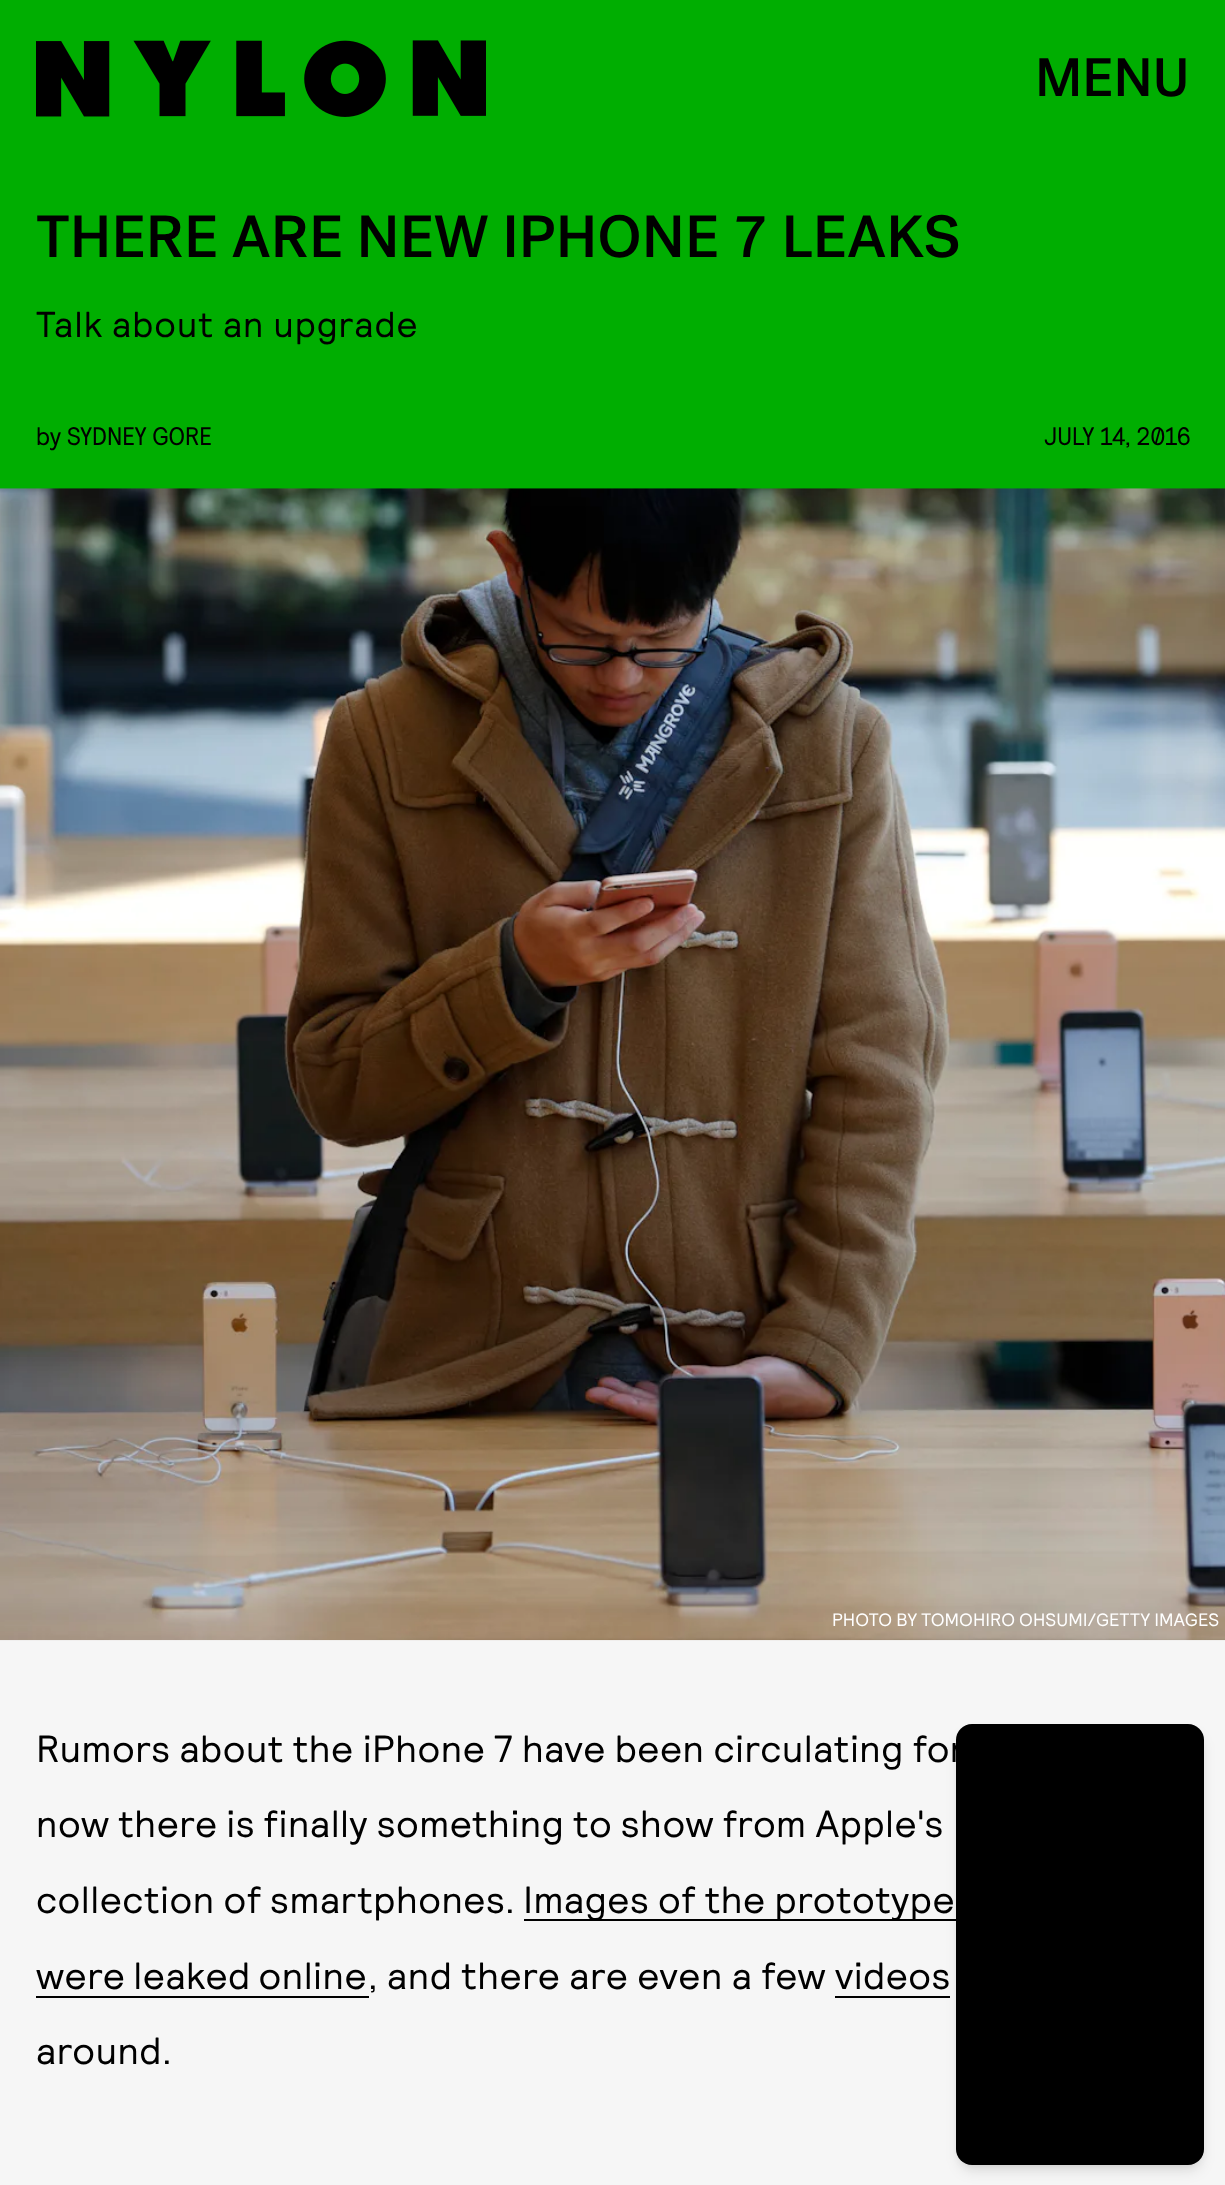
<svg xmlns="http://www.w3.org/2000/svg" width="1225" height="2185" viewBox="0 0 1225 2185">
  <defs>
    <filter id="blur1" x="-50%" y="-200%" width="200%" height="500%"><feGaussianBlur stdDeviation="4.5"/></filter>
    <filter id="blur2" x="-50%" y="-200%" width="200%" height="500%"><feGaussianBlur stdDeviation="7"/></filter>
  </defs>
  <rect width="100%" height="100%" fill="#f6f6f6"/>
  <rect x="0" y="0" width="1225" height="489" fill="#00ae01"/>
  <image x="36" y="40" width="450" height="77" href="img1.png"/>
  <text x="1035" y="96" font-family="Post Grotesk" font-size="54" font-weight="500" fill="#000000">MENU</text>
  <text x="36" y="257" font-family="Post Grotesk" font-size="59.4" font-weight="500" fill="#000000">THERE ARE NEW IPHONE 7 LEAKS</text>
  <text x="36" y="337" font-family="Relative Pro" font-size="36" letter-spacing="0.9" fill="#000000">Talk about an upgrade</text>
  <text x="36" y="445" font-family="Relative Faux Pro" font-size="25.25" fill="#000000">by SYDNEY GORE</text>
  <text x="1044" y="445" font-family="Relative Faux Pro" font-size="25.25" fill="#000000">JULY 14, 2016</text>
  <image x="0" y="488" width="1225" height="1153" href="img2.png"/>
  <text x="832" y="1626" font-family="Relative Pro" font-size="18" fill="#ffffff">PHOTO BY TOMOHIRO OHSUMI/GETTY IMAGES</text>
  <text x="36" y="1762" font-family="Relative Pro" font-size="37.8" letter-spacing="0.45" fill="#000000">Rumors about the iPhone 7 have been circulating for</text>
  <text x="36" y="1837" word-spacing="-0.25" font-family="Relative Pro" font-size="37.8" letter-spacing="0.45" fill="#000000">now there is finally something to show from Apple's</text>
  <text x="36" y="1913" font-family="Relative Pro" font-size="37.8" letter-spacing="0.45" fill="#000000">collection of smartphones.</text>
  <rect x="524" y="1919" width="432" height="2" fill="#000000"/>
  <text x="523" y="1913" font-family="Relative Pro" font-size="37.8" letter-spacing="0.45" fill="#000000">Images of the prototype</text>
  <text x="36" y="1989" word-spacing="-1" font-family="Relative Pro" font-size="37.8" letter-spacing="0.45" fill="#000000">were leaked online</text>
  <rect x="36" y="1996" width="333" height="2" fill="#000000"/>
  <text x="368" y="1989" font-family="Relative Pro" font-size="37.8" letter-spacing="0.45" fill="#000000">, and there are even a few</text>
  <text x="835" y="1989" font-family="Relative Pro" font-size="37.8" letter-spacing="0.45" fill="#000000">videos</text>
  <rect x="835" y="1996" width="115" height="2" fill="#000000"/>
  <text x="36" y="2064" font-family="Relative Pro" font-size="37.8" letter-spacing="0.45" fill="#000000">around.</text>
  <rect x="961" y="1733" width="238" height="432" rx="11" fill="#000000" fill-opacity="0.1" filter="url(#blur1)"/>
  <rect x="959" y="1735" width="243" height="436" rx="14" fill="#000000" fill-opacity="0.1" filter="url(#blur2)"/>
  <rect x="956" y="1724" width="248" height="441" rx="16" fill="#000000"/>
</svg>
